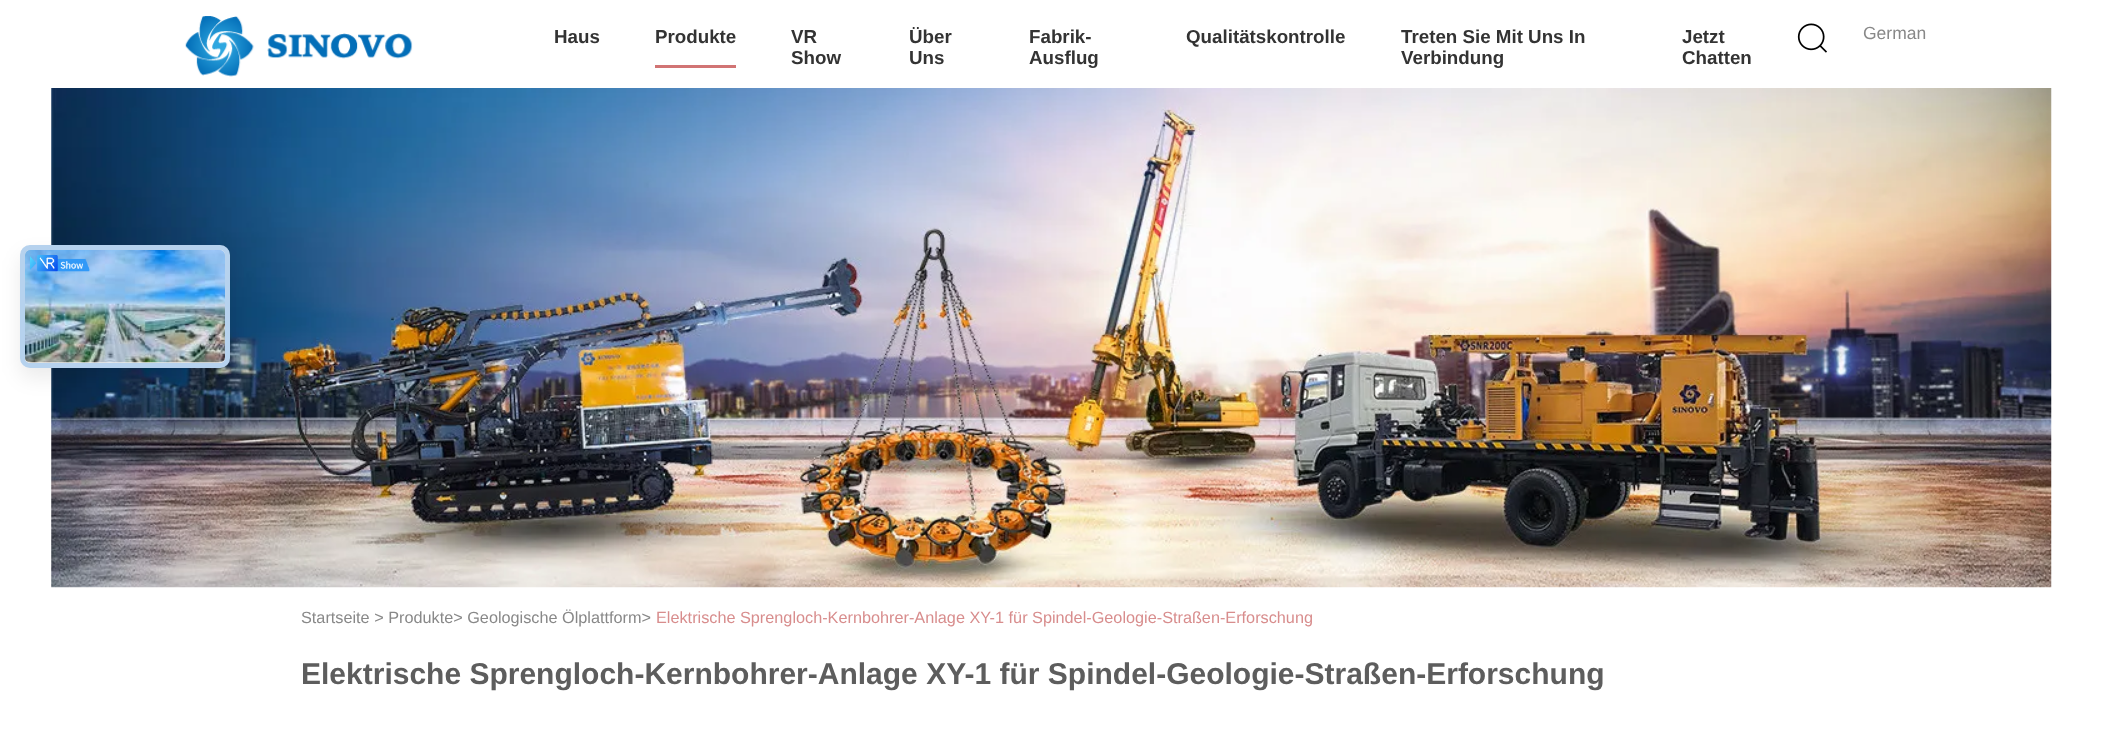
<svg xmlns="http://www.w3.org/2000/svg" width="2102" height="729" viewBox="0 0 2102 729">
  <defs>
    <filter id="blur1" x="-50%" y="-200%" width="200%" height="500%"><feGaussianBlur stdDeviation="10"/></filter>
  </defs>
  <rect width="100%" height="100%" fill="#ffffff"/>
  <image x="185" y="16" width="228" height="61" href="img1.png"/>
  <text x="554" y="43" font-family="Liberation Sans" font-size="18.75" font-weight="bold" fill="#333333">Haus</text>
  <rect x="655" y="65" width="81" height="3" fill="#d17474"/>
  <text x="655" y="43" font-family="Liberation Sans" font-size="18.75" font-weight="bold" fill="#333333">Produkte</text>
  <text x="791" y="43" font-family="Liberation Sans" font-size="18.75" font-weight="bold" fill="#333333">VR</text>
  <text x="791" y="64" font-family="Liberation Sans" font-size="18.75" font-weight="bold" fill="#333333">Show</text>
  <text x="909" y="43" font-family="Liberation Sans" font-size="18.75" font-weight="bold" fill="#333333">Über</text>
  <text x="909" y="64" font-family="Liberation Sans" font-size="18.75" font-weight="bold" fill="#333333">Uns</text>
  <text x="1029" y="43" font-family="Liberation Sans" font-size="18.75" font-weight="bold" fill="#333333">Fabrik-</text>
  <text x="1029" y="64" font-family="Liberation Sans" font-size="18.75" font-weight="bold" fill="#333333">Ausflug</text>
  <text x="1186" y="43" font-family="Liberation Sans" font-size="18.75" font-weight="bold" fill="#333333">Qualitätskontrolle</text>
  <text x="1401" y="43" font-family="Liberation Sans" font-size="18.75" font-weight="bold" fill="#333333">Treten Sie Mit Uns In</text>
  <text x="1401" y="64" font-family="Liberation Sans" font-size="18.75" font-weight="bold" fill="#333333">Verbindung</text>
  <text x="1682" y="43" font-family="Liberation Sans" font-size="18.75" font-weight="bold" fill="#333333">Jetzt</text>
  <text x="1682" y="64" font-family="Liberation Sans" font-size="18.75" font-weight="bold" fill="#333333">Chatten</text>
  <image x="1797" y="23" width="30" height="30" href="img2.png"/>
  <text x="1863" y="39" font-family="Liberation Sans" font-size="17.5" fill="#888888">German</text>
  <image x="51" y="88" width="2001" height="500" href="img3.png"/>
  <rect x="20" y="255" width="210" height="123" rx="10" fill="#000000" fill-opacity="0.08" filter="url(#blur1)"/>
  <rect x="20" y="245" width="210" height="123" rx="10" fill="#eeeeee"/>
  <rect x="22.5" y="247.5" width="205" height="118" rx="7.5" fill="none" stroke="#0478ed" stroke-opacity="0.24" stroke-width="5"/>
  <rect x="25" y="250" width="200" height="113" rx="5" fill="#eeeeee"/>
  <image x="25" y="250" width="200" height="113" href="img4.png"/>
  <image x="30" y="255" width="60" height="17" href="img5.png"/>
  <text x="301" y="623" font-family="Liberation Sans" font-size="16.25" fill="#888888">Startseite &gt; Produkte&gt; Geologische Ölplattform&gt;</text>
  <text x="656" y="623" font-family="Liberation Sans" font-size="16.25" fill="#d88d8d">Elektrische Sprengloch-Kernbohrer-Anlage XY-1 für Spindel-Geologie-Straßen-Erforschung</text>
  <text x="301" y="684" font-family="Liberation Sans" font-size="30" font-weight="bold" fill="#5d5d5d">Elektrische Sprengloch-Kernbohrer-Anlage XY-1 für Spindel-Geologie-Straßen-Erforschung</text>
</svg>
